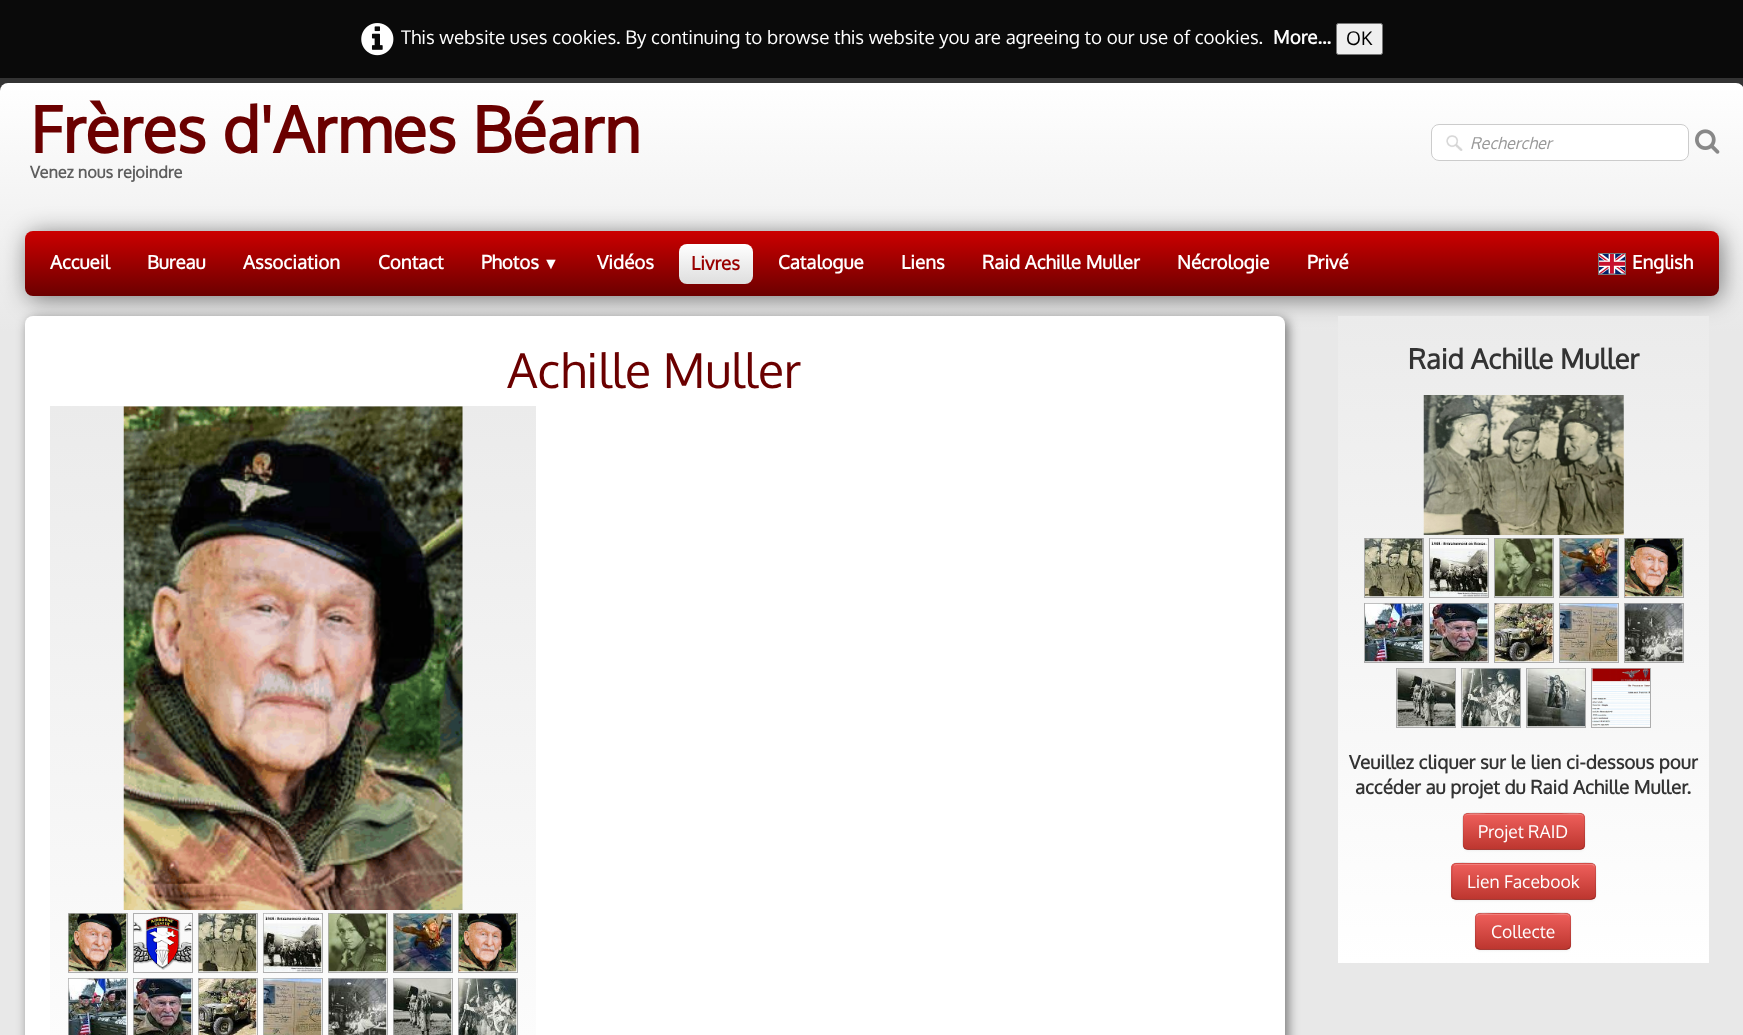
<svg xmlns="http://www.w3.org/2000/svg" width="1743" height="1035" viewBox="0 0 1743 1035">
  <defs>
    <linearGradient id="g1" gradientUnits="userSpaceOnUse" x1="872" y1="82" x2="872" y2="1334"><stop offset="0" stop-color="#ffffff"/><stop offset="0.2" stop-color="#e8e8e8"/></linearGradient>
    <filter id="blur1" x="-50%" y="-200%" width="200%" height="500%"><feGaussianBlur stdDeviation="12.5"/></filter>
    <linearGradient id="g2" gradientUnits="userSpaceOnUse" x1="872" y1="231" x2="872" y2="296"><stop offset="0" stop-color="#cc0000"/><stop offset="1" stop-color="#6b0000"/></linearGradient>
    <linearGradient id="g3" gradientUnits="userSpaceOnUse" x1="716" y1="244" x2="716" y2="284"><stop offset="0" stop-color="#ffffff"/><stop offset="1" stop-color="#dedede"/></linearGradient>
    <filter id="blur2" x="-50%" y="-200%" width="200%" height="500%"><feGaussianBlur stdDeviation="6"/></filter>
    <linearGradient id="g4" gradientUnits="userSpaceOnUse" x1="293" y1="406" x2="293" y2="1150"><stop offset="0" stop-color="#ebebeb"/><stop offset="1" stop-color="#ffffff"/></linearGradient>
    <linearGradient id="g5" gradientUnits="userSpaceOnUse" x1="1523" y1="316" x2="1523" y2="963"><stop offset="0" stop-color="#ebebeb"/><stop offset="1" stop-color="#ffffff"/></linearGradient>
    <filter id="blur3" x="-50%" y="-200%" width="200%" height="500%"><feGaussianBlur stdDeviation="1"/></filter>
    <clipPath id="clip1"><rect x="1463" y="813" width="122" height="37" rx="5"/></clipPath>
    <linearGradient id="g6" gradientUnits="userSpaceOnUse" x1="1524" y1="814" x2="1524" y2="849"><stop offset="0" stop-color="#ee5f5b"/><stop offset="1" stop-color="#bd362f"/></linearGradient>
    <clipPath id="clip2"><rect x="1451" y="863" width="145" height="37" rx="5"/></clipPath>
    <linearGradient id="g7" gradientUnits="userSpaceOnUse" x1="1524" y1="864" x2="1524" y2="899"><stop offset="0" stop-color="#ee5f5b"/><stop offset="1" stop-color="#bd362f"/></linearGradient>
    <clipPath id="clip3"><rect x="1475" y="913" width="96" height="37" rx="5"/></clipPath>
    <linearGradient id="g8" gradientUnits="userSpaceOnUse" x1="1523" y1="914" x2="1523" y2="949"><stop offset="0" stop-color="#ee5f5b"/><stop offset="1" stop-color="#bd362f"/></linearGradient>
  </defs>
  <rect width="100%" height="100%" fill="#333333"/>
  <rect x="0" y="0" width="1743" height="78" fill="#0a0a0a"/>
  <image x="361" y="23" width="33" height="33" href="img1.png"/>
  <text x="401" y="44" font-family="Oxygen" font-size="18.75" fill="#ffffff">This website uses cookies. By continuing to browse this website you are agreeing to our use of cookies.</text>
  <text x="1273" y="44" font-family="Oxygen" font-size="18.75" font-weight="bold" fill="#ffffff">More...</text>
  <rect x="1336.5" y="23.5" width="46" height="31" rx="2" fill="#efefef" stroke="#767676"/>
  <text x="1346" y="45" font-family="Oxygen" font-size="18.75" fill="#000000">OK</text>
  <rect x="0" y="83" width="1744" height="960" rx="8" fill="url(#g1)"/>
  <text x="30" y="153" font-family="Oxygen" font-size="63.75" font-weight="bold" fill="#6b0000">Frères d'Armes Béarn</text>
  <text x="30" y="178" font-family="Oxygen" font-size="16.25" font-weight="bold" fill="#5e5e5e">Venez nous rejoindre</text>
  <rect x="1431" y="124" width="258" height="37" rx="8" fill="#ffffff"/>
  <image x="1446" y="135" width="17" height="16" href="img2.png"/>
  <rect x="1431.5" y="124.5" width="257" height="36" rx="7.5" fill="none" stroke="#cccccc"/>
  <text x="1470" y="149" font-family="Oxygen" font-size="16.25" font-style="italic" fill="#999999">Rechercher</text>
  <image x="1695" y="129" width="25" height="25" href="img3.png"/>
  <rect x="28" y="234" width="1693" height="65" rx="8" fill="#000000" fill-opacity="0.5" filter="url(#blur1)"/>
  <rect x="25" y="231" width="1694" height="65" rx="8" fill="url(#g2)"/>
  <text x="50" y="269" font-family="Oxygen" font-size="18.75" font-weight="bold" fill="#ffffff">Accueil</text>
  <text x="147" y="269" font-family="Oxygen" font-size="18.75" font-weight="bold" fill="#ffffff">Bureau</text>
  <text x="243" y="269" font-family="Oxygen" font-size="18.75" font-weight="bold" fill="#ffffff">Association</text>
  <text x="378" y="269" font-family="Oxygen" font-size="18.75" font-weight="bold" fill="#ffffff">Contact</text>
  <text x="481" y="269" font-family="Oxygen" font-size="18.75" font-weight="bold" fill="#ffffff">Photos</text>
  <text x="543" y="269" font-family="Liberation Serif" font-size="16" font-weight="bold" fill="#ffffff">▼</text>
  <text x="597" y="269" font-family="Oxygen" font-size="18.75" font-weight="bold" fill="#ffffff">Vidéos</text>
  <rect x="679" y="244" width="74" height="40" rx="8" fill="url(#g3)"/>
  <text x="691" y="270" font-family="Oxygen" font-size="18.75" font-weight="bold" fill="#990000">Livres</text>
  <text x="778" y="269" font-family="Oxygen" font-size="18.75" font-weight="bold" fill="#ffffff">Catalogue</text>
  <text x="901" y="269" font-family="Oxygen" font-size="18.75" font-weight="bold" fill="#ffffff">Liens</text>
  <text x="982" y="269" font-family="Oxygen" font-size="18.75" font-weight="bold" fill="#ffffff">Raid Achille Muller</text>
  <text x="1177" y="269" font-family="Oxygen" font-size="18.75" font-weight="bold" fill="#ffffff">Nécrologie</text>
  <text x="1307" y="269" font-family="Oxygen" font-size="18.75" font-weight="bold" fill="#ffffff">Privé</text>
  <rect x="1598.5" y="253.5" width="27" height="21" fill="none" stroke="#787878"/>
  <image x="1599" y="254" width="26" height="20" href="img4.png"/>
  <text x="1632" y="269" font-family="Oxygen" font-size="18.75" font-weight="bold" fill="#ffffff">English</text>
  <rect x="28" y="319" width="1260" height="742" rx="8" fill="#000000" fill-opacity="0.5" filter="url(#blur2)"/>
  <rect x="25" y="316" width="1260" height="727" rx="8" fill="#ffffff"/>
  <text x="507" y="388" font-family="Oxygen" font-size="48" fill="#6b0000">Achille Muller</text>
  <rect x="50" y="406" width="486" height="629" fill="url(#g4)"/>
  <image x="123" y="406" width="340" height="504" href="img5.png"/>
  <rect x="68.5" y="913.5" width="59" height="59" fill="none" stroke="#afafaf"/>
  <image x="68" y="913" width="59" height="59" href="img6.png"/>
  <rect x="133.5" y="913.5" width="59" height="59" fill="none" stroke="#afafaf"/>
  <rect x="198.5" y="913.5" width="59" height="59" fill="none" stroke="#afafaf"/>
  <image x="198" y="913" width="59" height="59" href="img7.png"/>
  <rect x="263.5" y="913.5" width="59" height="59" fill="none" stroke="#afafaf"/>
  <image x="263" y="913" width="59" height="59" href="img8.png"/>
  <rect x="328.5" y="913.5" width="59" height="59" fill="none" stroke="#afafaf"/>
  <image x="328" y="913" width="59" height="59" href="img9.png"/>
  <rect x="393.5" y="913.5" width="59" height="59" fill="none" stroke="#afafaf"/>
  <image x="393" y="913" width="59" height="59" href="img10.png"/>
  <rect x="458.5" y="913.5" width="59" height="59" fill="none" stroke="#afafaf"/>
  <image x="133" y="916" width="59" height="54" href="img11.png"/>
  <image x="458" y="913" width="59" height="59" href="img12.png"/>
  <rect x="68.5" y="978.5" width="59" height="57" fill="none" stroke="#b0b0b0"/>
  <image x="68" y="978" width="59" height="57" href="img13.png"/>
  <rect x="133.5" y="978.5" width="59" height="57" fill="none" stroke="#b0b0b0"/>
  <image x="133" y="978" width="59" height="57" href="img14.png"/>
  <rect x="198.5" y="978.5" width="59" height="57" fill="none" stroke="#b0b0b0"/>
  <image x="198" y="978" width="59" height="57" href="img15.png"/>
  <rect x="263.5" y="978.5" width="59" height="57" fill="none" stroke="#b0b0b0"/>
  <image x="263" y="978" width="59" height="57" href="img16.png"/>
  <rect x="328.5" y="978.5" width="59" height="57" fill="none" stroke="#b0b0b0"/>
  <image x="328" y="978" width="59" height="57" href="img17.png"/>
  <rect x="393.5" y="978.5" width="59" height="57" fill="none" stroke="#b0b0b0"/>
  <image x="393" y="978" width="59" height="57" href="img18.png"/>
  <rect x="458.5" y="978.5" width="59" height="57" fill="none" stroke="#b0b0b0"/>
  <image x="458" y="978" width="59" height="57" href="img19.png"/>
  <rect x="1338" y="316" width="371" height="647" fill="url(#g5)"/>
  <text x="1408" y="369" font-family="Oxygen" font-size="27.5" font-weight="bold" fill="#333333">Raid Achille Muller</text>
  <image x="1423" y="395" width="201" height="140" href="img20.png"/>
  <rect x="1364.5" y="538.5" width="59" height="59" fill="none" stroke="#aaaaaa"/>
  <image x="1365" y="538" width="58" height="59" href="img21.png"/>
  <rect x="1429.5" y="538.5" width="59" height="59" fill="none" stroke="#aaaaaa"/>
  <image x="1430" y="538" width="58" height="59" href="img22.png"/>
  <rect x="1494.5" y="538.5" width="59" height="59" fill="none" stroke="#aaaaaa"/>
  <image x="1495" y="538" width="58" height="59" href="img23.png"/>
  <rect x="1559.5" y="538.5" width="59" height="59" fill="none" stroke="#aaaaaa"/>
  <image x="1560" y="538" width="58" height="59" href="img24.png"/>
  <rect x="1624.5" y="538.5" width="59" height="59" fill="none" stroke="#aaaaaa"/>
  <image x="1625" y="538" width="58" height="59" href="img25.png"/>
  <rect x="1364.5" y="603.5" width="59" height="59" fill="none" stroke="#ababab"/>
  <image x="1365" y="603" width="58" height="59" href="img26.png"/>
  <rect x="1429.5" y="603.5" width="59" height="59" fill="none" stroke="#ababab"/>
  <image x="1430" y="603" width="58" height="59" href="img27.png"/>
  <rect x="1494.5" y="603.5" width="59" height="59" fill="none" stroke="#ababab"/>
  <image x="1495" y="603" width="58" height="59" href="img28.png"/>
  <rect x="1559.5" y="603.5" width="59" height="59" fill="none" stroke="#ababab"/>
  <image x="1560" y="603" width="58" height="59" href="img29.png"/>
  <rect x="1624.5" y="603.5" width="59" height="59" fill="none" stroke="#ababab"/>
  <image x="1625" y="603" width="58" height="59" href="img30.png"/>
  <rect x="1396.5" y="668.5" width="59" height="59" fill="none" stroke="#adadad"/>
  <image x="1397" y="668" width="58" height="59" href="img31.png"/>
  <rect x="1461.5" y="668.5" width="59" height="59" fill="none" stroke="#adadad"/>
  <image x="1462" y="668" width="58" height="59" href="img32.png"/>
  <rect x="1526.5" y="668.5" width="59" height="59" fill="none" stroke="#adadad"/>
  <image x="1527" y="668" width="58" height="59" href="img33.png"/>
  <rect x="1591.5" y="668.5" width="59" height="59" fill="none" stroke="#adadad"/>
  <image x="1592" y="668" width="58" height="58" href="img34.png"/>
  <text x="1349" y="769" font-family="Oxygen" font-size="18.75" font-weight="bold" fill="#333333">Veuillez cliquer sur le lien ci-dessous pour</text>
  <text x="1355" y="794" font-family="Oxygen" font-size="18.75" font-weight="bold" fill="#333333">accéder au projet du Raid Achille Muller.</text>
  <rect x="1463" y="814" width="122" height="37" rx="5" fill="#000000" fill-opacity="0.05" filter="url(#blur3)"/>
  <rect x="1463" y="813" width="122" height="37" rx="5" fill="#da4f49"/>
  <g clip-path="url(#clip1)">
    <rect x="1463" y="814" width="122" height="35" fill="url(#g6)"/>
  </g>
  <path d="M1468 815H1580C1582 815 1584 817 1584 819C1584 809 1564 814 1561 814H1487C1484 814 1464 809 1464 819C1464 817 1465 815 1468 815Z" fill="#ffffff" fill-opacity="0.2"/>
  <path d="M1583 848C1582.5 849 1581 849.5 1580 849.5H1467.5C1466.5 849.5 1465 849 1464.5 848" fill="none" stroke="#000000" stroke-opacity="0.25" stroke-width="1.2"/>
  <path d="M1464.5 848C1461.5 845.5 1463 839 1463 836C1463 809 1458.5 813 1486 813H1561C1589 813 1584.5 809 1584.5 836C1584.5 839 1586 845.5 1583 848" fill="none" stroke="#000000" stroke-opacity="0.1" stroke-width="1.2"/>
  <text x="1478" y="838" font-family="Oxygen" font-size="17.5" fill="#ffffff">Projet RAID</text>
  <rect x="1451" y="864" width="145" height="37" rx="5" fill="#000000" fill-opacity="0.05" filter="url(#blur3)"/>
  <rect x="1451" y="863" width="145" height="37" rx="5" fill="#da4f49"/>
  <g clip-path="url(#clip2)">
    <rect x="1451" y="864" width="145" height="35" fill="url(#g7)"/>
  </g>
  <path d="M1456 865H1591C1593 865 1595 867 1595 869C1595 867 1595 865 1593 864H1456C1455 864 1454 865 1454 866Z" fill="#f17e7b"/>
  <path d="M1594.5 898L1591 899.5H1456L1453 898" fill="none" stroke="#000000" stroke-opacity="0.25" stroke-width="1.2"/>
  <path d="M1453 898C1450.5 895.5 1452 889 1452 886C1452 857.5 1447.5 863 1479 863H1569C1600 863 1595.5 857.5 1595.5 886C1595.5 889 1597 895.5 1594.5 898" fill="none" stroke="#000000" stroke-opacity="0.1" stroke-width="1.2"/>
  <text x="1467" y="888" font-family="Oxygen" font-size="17.5" fill="#ffffff">Lien Facebook</text>
  <rect x="1475" y="914" width="96" height="37" rx="5" fill="#000000" fill-opacity="0.05" filter="url(#blur3)"/>
  <rect x="1475" y="913" width="96" height="37" rx="5" fill="#da4f49"/>
  <g clip-path="url(#clip3)">
    <rect x="1475" y="914" width="96" height="35" fill="url(#g8)"/>
  </g>
  <path d="M1480 915H1566C1568 915 1570 917 1570 919C1570 910 1556 914 1552 914H1494C1490 914 1476 910 1476 919C1476 917 1478 915 1480 915Z" fill="#ffffff" fill-opacity="0.2"/>
  <path d="M1569.5 948L1566.5 949.5H1479.5L1477 948" fill="none" stroke="#000000" stroke-opacity="0.25" stroke-width="1.2"/>
  <path d="M1477 948C1475 946 1475.5 943 1475.5 940.5V931C1475.5 910.5 1472.5 913 1494.5 913H1552C1573.5 913 1570.5 910.5 1570.5 931V940.5C1570.5 943 1571.5 946 1569.5 948" fill="none" stroke="#000000" stroke-opacity="0.1" stroke-width="1.2"/>
  <text x="1491" y="938" font-family="Oxygen" font-size="17.5" fill="#ffffff">Collecte</text>
</svg>
